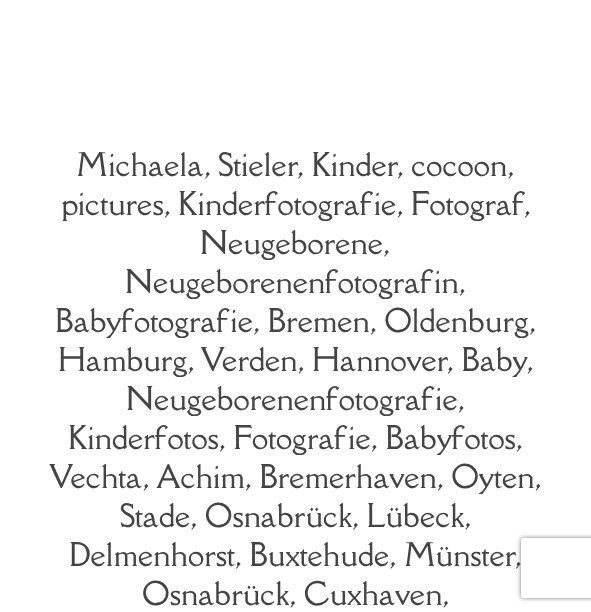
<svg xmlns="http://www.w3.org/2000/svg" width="591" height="612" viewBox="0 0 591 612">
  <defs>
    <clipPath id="clip1"><path d="M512 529H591V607H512ZM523 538H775C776 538 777 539 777 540V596C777 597 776 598 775 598H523C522 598 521 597 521 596V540C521 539 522 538 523 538Z" clip-rule="evenodd"/></clipPath>
    <filter id="blur1" x="-50%" y="-200%" width="200%" height="500%"><feGaussianBlur stdDeviation="2.5"/></filter>
  </defs>
  <rect width="100%" height="100%" fill="#ffffff"/>
  <text x="76" y="176" font-family="Della Respira" font-size="30" fill="#444444">Michaela, Stieler, Kinder, cocoon,</text>
  <text x="61" y="215" font-family="Della Respira" font-size="30" fill="#444444">pictures, Kinderfotografie, Fotograf,</text>
  <text x="200" y="254" font-family="Della Respira" font-size="30" fill="#444444">Neugeborene,</text>
  <text x="125" y="293" font-family="Della Respira" font-size="30" fill="#444444">Neugeborenenfotografin,</text>
  <text x="55" y="332" font-family="Della Respira" font-size="30" fill="#444444">Babyfotografie, Bremen, Oldenburg,</text>
  <text x="58" y="371" font-family="Della Respira" font-size="30" fill="#444444">Hamburg, Verden, Hannover, Baby,</text>
  <text x="126" y="410" font-family="Della Respira" font-size="30" fill="#444444">Neugeborenenfotografie,</text>
  <text x="68" y="449" font-family="Della Respira" font-size="30" fill="#444444">Kinderfotos, Fotografie, Babyfotos,</text>
  <text x="49" y="488" font-family="Della Respira" font-size="30" fill="#444444">Vechta, Achim, Bremerhaven, Oyten,</text>
  <text x="120" y="527" font-family="Della Respira" font-size="30" fill="#444444">Stade, Osnabrück, Lübeck,</text>
  <g clip-path="url(#clip1)">
    <rect x="521" y="538" width="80" height="60" rx="2" fill="#808080" filter="url(#blur1)"/>
  </g>
  <text x="69" y="566" font-family="Della Respira" font-size="30" fill="#444444">Delmenhorst, Buxtehude, Münster,</text>
  <text x="142" y="605" font-family="Della Respira" font-size="30" fill="#444444">Osnabrück, Cuxhaven,</text>
</svg>
